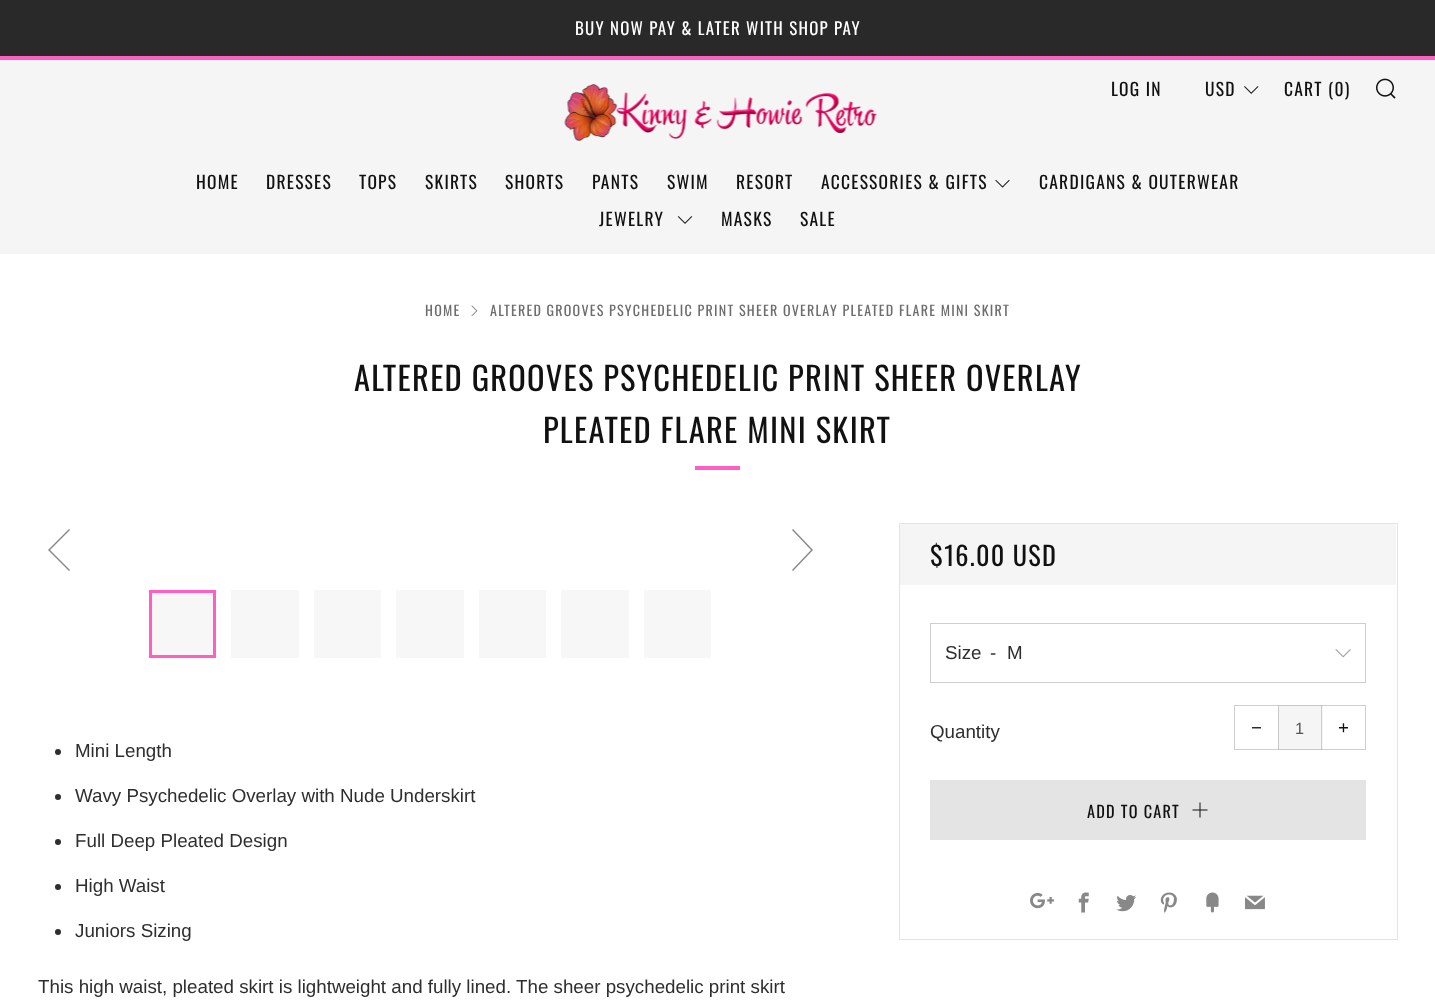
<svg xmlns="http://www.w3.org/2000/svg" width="1435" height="1003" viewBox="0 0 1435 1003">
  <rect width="100%" height="100%" fill="#ffffff"/>
  <rect x="0" y="0" width="1435" height="56" fill="#292929"/>
  <text x="575" y="35" font-family="Oswald" font-size="16.9" letter-spacing="1.25" fill="#ffffff">BUY NOW PAY &amp; LATER WITH SHOP PAY</text>
  <rect x="0" y="60" width="1435" height="194" fill="#f5f5f5"/>
  <rect x="0" y="56" width="1435" height="4" fill="#ff5ec2"/>
  <text x="1111" y="96" font-family="Oswald" font-size="17.5" letter-spacing="1.25" fill="#111111">LOG IN</text>
  <text x="1205" y="96" font-family="Oswald" font-size="17.5" letter-spacing="1.25" fill="#111111">USD</text>
  <image x="1244" y="86" width="15" height="8" href="img1.png"/>
  <text x="1284" y="96" font-family="Oswald" font-size="17.5" letter-spacing="1.25" fill="#111111">CART (0)</text>
  <image x="1376" y="78" width="20" height="21" href="img2.png"/>
  <text x="196" y="189" font-family="Oswald" font-size="17.5" letter-spacing="1.25" fill="#111111">HOME</text>
  <text x="266" y="189" font-family="Oswald" font-size="17.5" letter-spacing="1.25" fill="#111111">DRESSES</text>
  <text x="359" y="189" font-family="Oswald" font-size="17.5" letter-spacing="1.25" fill="#111111">TOPS</text>
  <text x="425" y="189" font-family="Oswald" font-size="17.5" letter-spacing="1.25" fill="#111111">SKIRTS</text>
  <text x="505" y="189" font-family="Oswald" font-size="17.5" letter-spacing="1.25" fill="#111111">SHORTS</text>
  <text x="592" y="189" font-family="Oswald" font-size="17.5" letter-spacing="1.25" fill="#111111">PANTS</text>
  <text x="667" y="189" font-family="Oswald" font-size="17.5" letter-spacing="1.25" fill="#111111">SWIM</text>
  <text x="736" y="189" font-family="Oswald" font-size="17.5" letter-spacing="1.25" fill="#111111">RESORT</text>
  <text x="821" y="189" font-family="Oswald" font-size="17.5" letter-spacing="1.25" fill="#111111">ACCESSORIES &amp; GIFTS</text>
  <image x="995" y="179" width="15" height="9" href="img3.png"/>
  <text x="1039" y="189" font-family="Oswald" font-size="17.5" letter-spacing="1.25" fill="#111111">CARDIGANS &amp; OUTERWEAR</text>
  <text x="599" y="226" font-family="Oswald" font-size="17.5" letter-spacing="1.25" fill="#111111">JEWELRY</text>
  <image x="677" y="216" width="16" height="8" href="img4.png"/>
  <text x="721" y="226" font-family="Oswald" font-size="17.5" letter-spacing="1.25" fill="#111111">MASKS</text>
  <text x="800" y="226" font-family="Oswald" font-size="17.5" letter-spacing="1.25" fill="#111111">SALE</text>
  <image x="564" y="84" width="313" height="57" href="img5.png"/>
  <text x="425" y="316" font-family="Oswald" font-size="14.05" letter-spacing="1.25" fill="#6d6d6d">HOME</text>
  <image x="471" y="305" width="7" height="11" href="img6.png"/>
  <text x="490" y="316" font-family="Oswald" font-size="14.05" letter-spacing="1.25" fill="#6d6d6d">ALTERED GROOVES PSYCHEDELIC PRINT SHEER OVERLAY PLEATED FLARE MINI SKIRT</text>
  <text x="354" y="391" font-family="Oswald" font-size="32.5" letter-spacing="1.25" fill="#111111">ALTERED GROOVES PSYCHEDELIC PRINT SHEER OVERLAY</text>
  <text x="543" y="443" font-family="Oswald" font-size="32.5" letter-spacing="1.25" fill="#111111">PLEATED FLARE MINI SKIRT</text>
  <rect x="695" y="466" width="45" height="4" fill="#ff5ec2"/>
  <rect x="899.5" y="523.5" width="498" height="416" fill="none" stroke="#e4e4e4"/>
  <rect x="900" y="524" width="496" height="61" fill="#f5f5f5"/>
  <text x="930" y="566" font-family="Oswald" font-size="26.25" letter-spacing="1.25" fill="#111111">$16.00 USD</text>
  <rect x="930.5" y="623.5" width="435" height="59" fill="none" stroke="#cfcfcf"/>
  <text x="945" y="659" font-family="Liberation Sans" font-size="18.75" fill="#2e2e2e">Size</text>
  <text x="990" y="659" font-family="Liberation Sans" font-size="18.75" fill="#2e2e2e">-</text>
  <text x="1007" y="659" font-family="Liberation Sans" font-size="18.75" fill="#2e2e2e">M</text>
  <image x="1335" y="649" width="16" height="9" href="img7.png"/>
  <text x="930" y="738" font-family="Liberation Sans" font-size="18.75" fill="#2e2e2e">Quantity</text>
  <rect x="1234.5" y="705.5" width="44" height="44" fill="none" stroke="#cfcfcf"/>
  <text x="1251" y="734" font-family="Liberation Sans" font-size="18.75" fill="#111111">−</text>
  <rect x="1278.5" y="705.5" width="44" height="44" fill="#f5f5f5" stroke="#c7c7c7"/>
  <text x="1295" y="734" font-family="Liberation Sans" font-size="16.25" fill="#555555">1</text>
  <rect x="1321" y="705" width="2" height="45" fill="#ffffff" fill-opacity="0.8"/>
  <rect x="1321.5" y="705.5" width="44" height="44" fill="none" stroke="#111111" stroke-opacity="0.2"/>
  <text x="1338" y="734" font-family="Liberation Sans" font-size="18.75" fill="#111111">+</text>
  <rect x="930" y="780" width="436" height="60" fill="#e4e4e4"/>
  <text x="1087" y="818" font-family="Oswald" font-size="16.25" letter-spacing="1.25" fill="#111111">ADD TO CART</text>
  <image x="1192" y="802" width="16" height="16" href="img8.png"/>
  <image x="1030" y="892" width="24" height="17" href="img9.png"/>
  <image x="1078" y="892" width="11" height="21" href="img10.png"/>
  <image x="1116" y="895" width="20" height="17" href="img11.png"/>
  <image x="1160" y="892" width="17" height="21" href="img12.png"/>
  <image x="1206" y="892" width="13" height="21" href="img13.png"/>
  <image x="1245" y="895" width="20" height="15" href="img14.png"/>
  <path d="M70 530L69 529L48 550L69 571L70 570L50 550Z" fill="#888888"/>
  <path d="M792 570L793 571L813 550L793 529L792 530L811 550Z" fill="#888888"/>
  <rect x="150.5" y="591.5" width="64" height="65" fill="#f7f7f7" stroke="#ff5ec2" stroke-width="3"/>
  <rect x="231" y="590" width="68" height="68" fill="#f7f7f7"/>
  <rect x="314" y="590" width="67" height="68" fill="#f7f7f7"/>
  <rect x="396" y="590" width="68" height="68" fill="#f7f7f7"/>
  <rect x="479" y="590" width="67" height="68" fill="#f7f7f7"/>
  <rect x="561" y="590" width="68" height="68" fill="#f7f7f7"/>
  <rect x="644" y="590" width="67" height="68" fill="#f7f7f7"/>
  <circle cx="58" cy="752" r="3" fill="#2e2e2e"/>
  <text x="75" y="757" font-family="Liberation Sans" font-size="18.75" fill="#2e2e2e">Mini Length</text>
  <circle cx="58" cy="797" r="3" fill="#2e2e2e"/>
  <text x="75" y="802" font-family="Liberation Sans" font-size="18.75" fill="#2e2e2e">Wavy Psychedelic Overlay with Nude Underskirt</text>
  <circle cx="58" cy="842" r="3" fill="#2e2e2e"/>
  <text x="75" y="847" font-family="Liberation Sans" font-size="18.75" fill="#2e2e2e">Full Deep Pleated Design</text>
  <circle cx="58" cy="887" r="3" fill="#2e2e2e"/>
  <text x="75" y="892" font-family="Liberation Sans" font-size="18.75" fill="#2e2e2e">High Waist</text>
  <circle cx="58" cy="932" r="3" fill="#2e2e2e"/>
  <text x="75" y="937" font-family="Liberation Sans" font-size="18.75" fill="#2e2e2e">Juniors Sizing</text>
  <text x="38" y="993" font-family="Liberation Sans" font-size="18.75" fill="#2e2e2e">This high waist, pleated skirt is lightweight and fully lined. The sheer psychedelic print skirt</text>
</svg>
